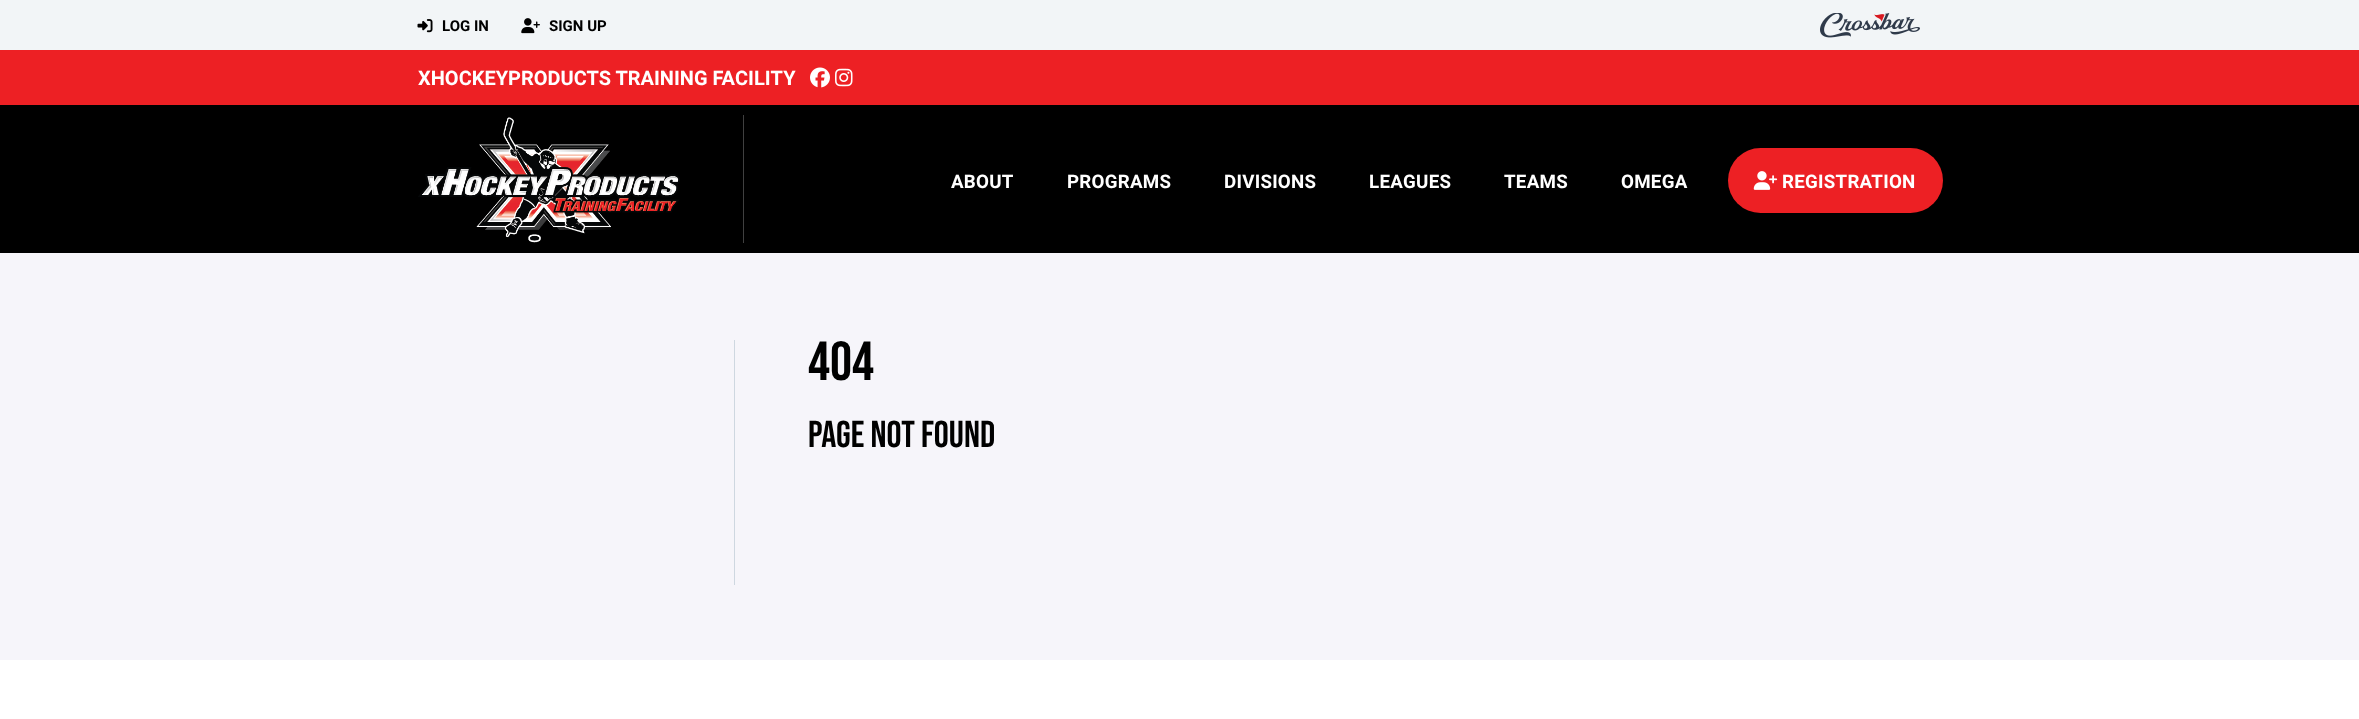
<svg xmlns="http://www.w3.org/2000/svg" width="2359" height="719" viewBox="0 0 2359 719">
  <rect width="100%" height="100%" fill="#f2f5f7"/>
  <image x="417" y="19" width="16" height="14" href="img1.png"/>
  <text x="442" y="31" font-family="Roboto" font-size="15" font-weight="bold" fill="#000000">LOG IN</text>
  <image x="521" y="18" width="19" height="16" href="img2.png"/>
  <text x="549" y="31" font-family="Roboto" font-size="15" font-weight="bold" fill="#000000">SIGN UP</text>
  <image x="1820" y="13" width="100" height="25" href="img3.png"/>
  <rect x="0" y="50" width="2359" height="55" fill="#ed2024"/>
  <text x="418" y="85" font-family="Roboto" font-size="20" font-weight="bold" fill="#ffffff">XHOCKEYPRODUCTS TRAINING FACILITY</text>
  <image x="810" y="67" width="20" height="21" href="img4.png"/>
  <image x="835" y="68" width="18" height="19" href="img5.png"/>
  <rect x="0" y="105" width="2359" height="148" fill="#000000"/>
  <rect x="743" y="115" width="1" height="128" fill="#404040"/>
  <image x="418" y="117" width="262" height="126" href="img6.png"/>
  <text x="951" y="188" font-family="Roboto" font-size="18.75" font-weight="bold" letter-spacing="0.25" fill="#ffffff">ABOUT</text>
  <text x="1067" y="188" font-family="Roboto" font-size="18.75" font-weight="bold" letter-spacing="0.25" fill="#ffffff">PROGRAMS</text>
  <text x="1224" y="188" font-family="Roboto" font-size="18.75" font-weight="bold" letter-spacing="0.25" fill="#ffffff">DIVISIONS</text>
  <text x="1369" y="188" font-family="Roboto" font-size="18.75" font-weight="bold" letter-spacing="0.25" fill="#ffffff">LEAGUES</text>
  <text x="1504" y="188" font-family="Roboto" font-size="18.75" font-weight="bold" letter-spacing="0.25" fill="#ffffff">TEAMS</text>
  <text x="1621" y="188" font-family="Roboto" font-size="18.75" font-weight="bold" letter-spacing="0.25" fill="#ffffff">OMEGA</text>
  <rect x="1728" y="148" width="215" height="65" rx="32.5" fill="#ed2024"/>
  <image x="1753" y="171" width="25" height="19" href="img7.png"/>
  <text x="1782" y="188" font-family="Roboto" font-size="18.75" font-weight="bold" letter-spacing="0.25" fill="#ffffff">REGISTRATION</text>
  <rect x="0" y="253" width="2359" height="407" fill="#f6f5fa"/>
  <rect x="734" y="340" width="1" height="245" fill="#ced7e0"/>
  <text x="808" y="380" font-family="Bebas Neue" font-size="55" fill="#000000">404</text>
  <text x="808" y="447" font-family="Bebas Neue" font-size="37.5" fill="#000000">PAGE NOT FOUND</text>
  <rect x="0" y="660" width="2359" height="59" fill="#ffffff"/>
</svg>
